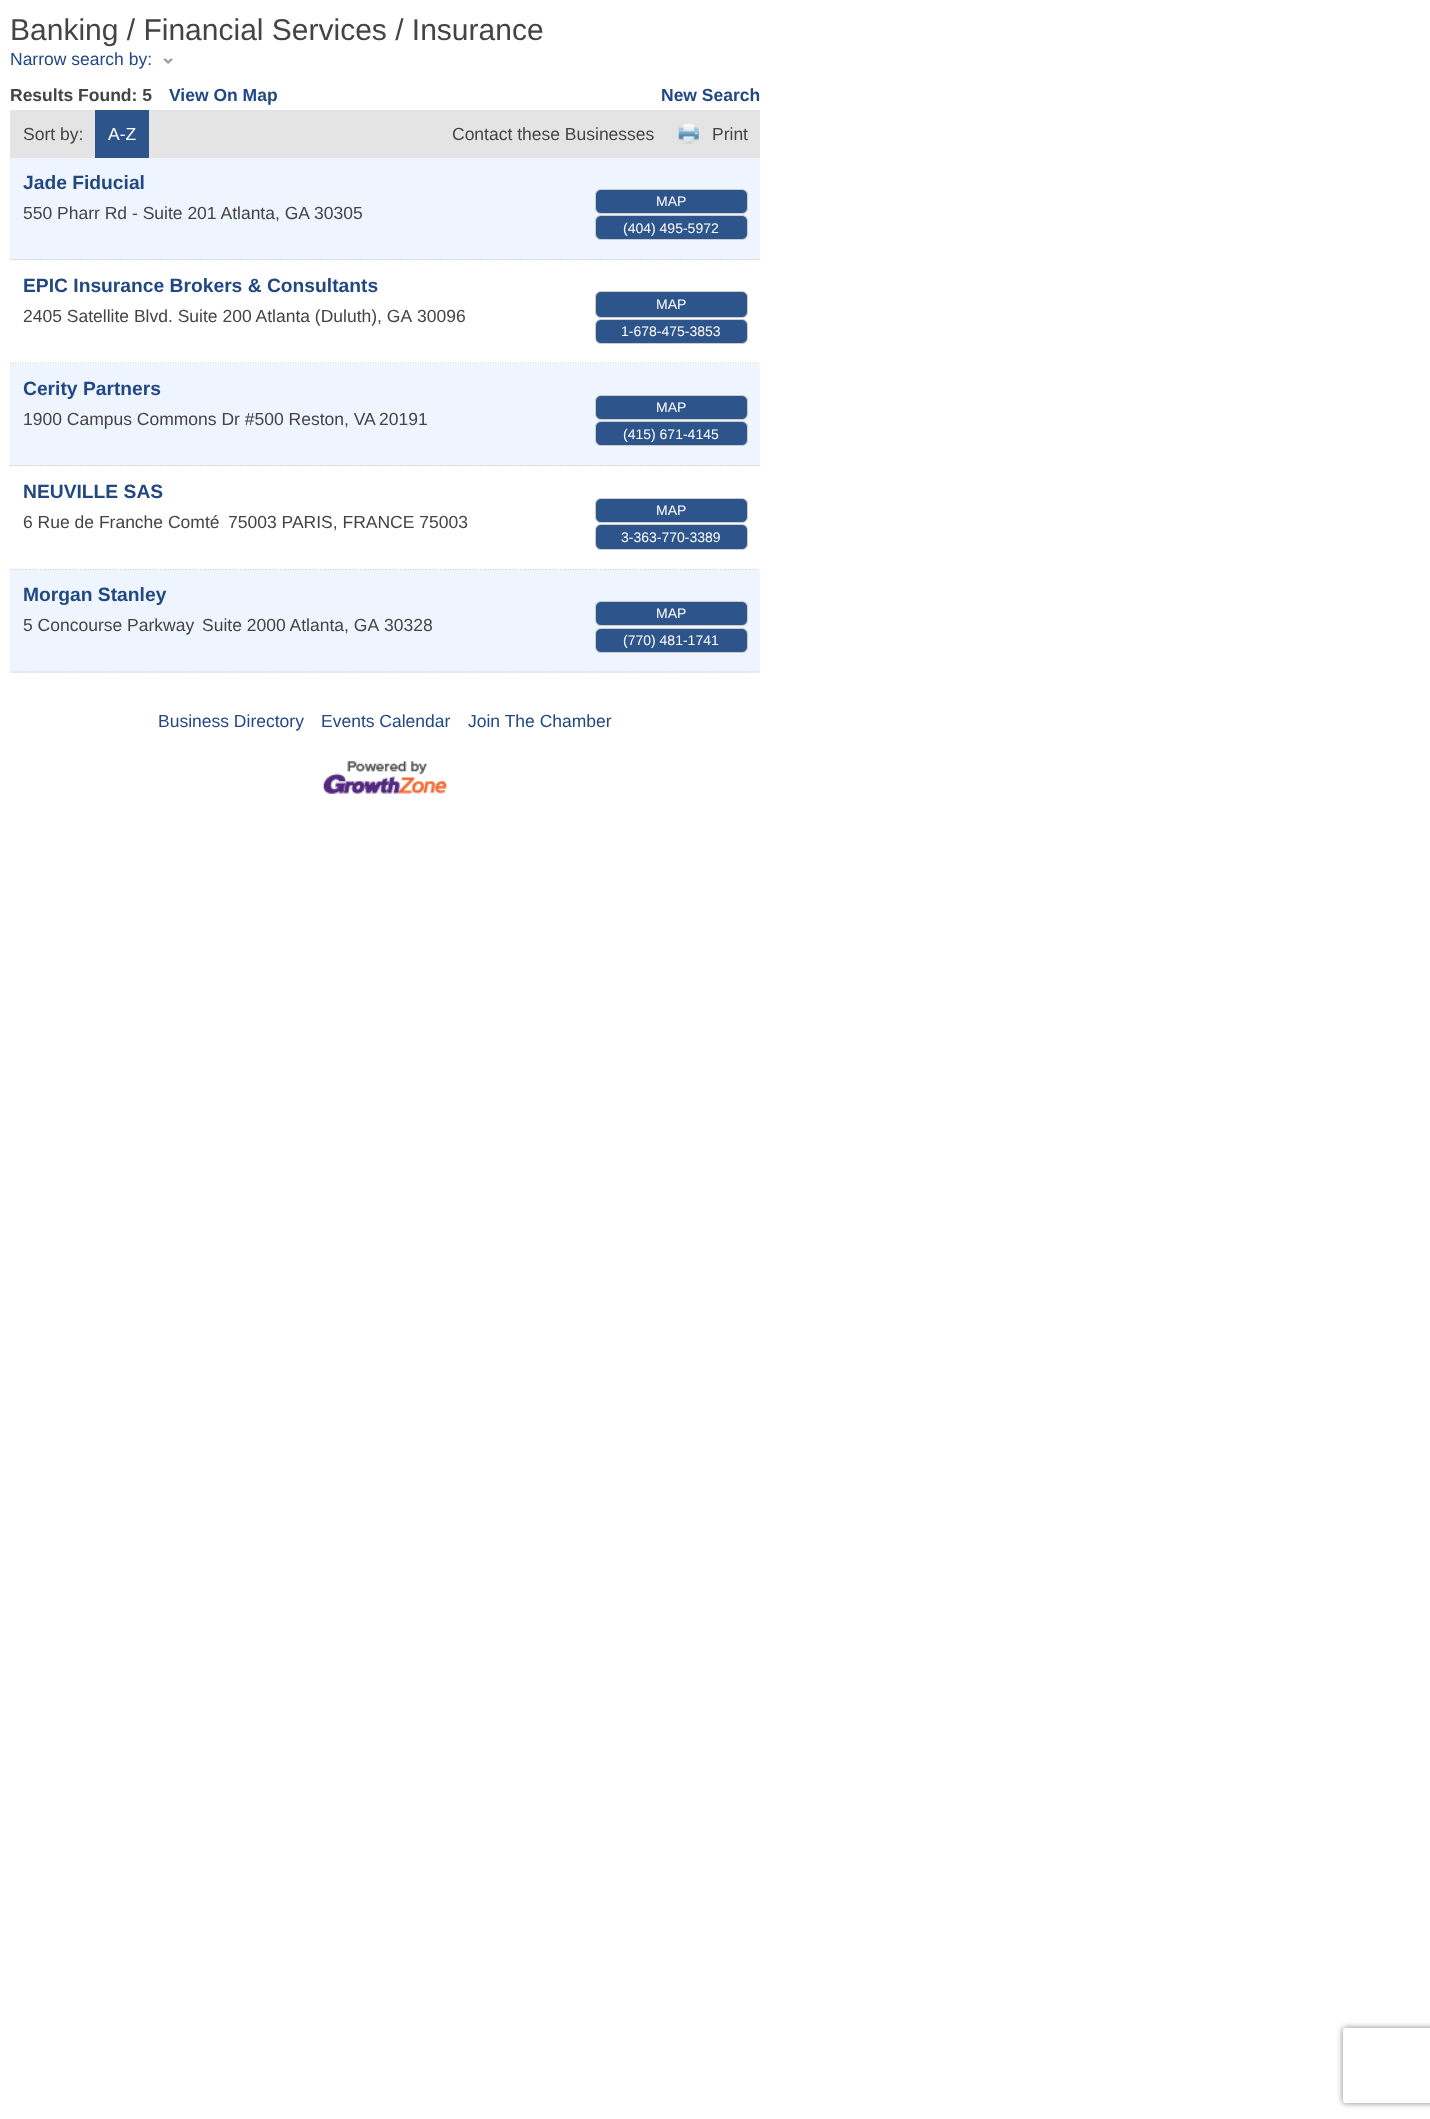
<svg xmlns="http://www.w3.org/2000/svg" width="1430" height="2119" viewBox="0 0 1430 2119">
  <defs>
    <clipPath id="clip1"><path d="M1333 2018H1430V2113H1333ZM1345.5 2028H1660.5C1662 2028 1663 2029 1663 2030.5V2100.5C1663 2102 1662 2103 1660.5 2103H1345.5C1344 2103 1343 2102 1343 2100.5V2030.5C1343 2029 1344 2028 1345.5 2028Z" clip-rule="evenodd"/></clipPath>
    <filter id="blur1" x="-50%" y="-200%" width="200%" height="500%"><feGaussianBlur stdDeviation="3"/></filter>
  </defs>
  <rect width="100%" height="100%" fill="#ffffff"/>
  <text x="10" y="40" font-family="Liberation Sans" font-size="30" fill="#444444">Banking / Financial Services / Insurance</text>
  <text x="10" y="65" font-family="Liberation Sans" font-size="17.5" fill="#224884">Narrow search by:</text>
  <image x="163" y="58" width="10" height="6" href="img1.png"/>
  <text x="10" y="101" font-family="Liberation Sans" font-size="17.5" font-weight="bold" fill="#444444">Results Found: 5</text>
  <text x="169" y="101" font-family="Liberation Sans" font-size="17.5" font-weight="bold" fill="#224884">View On Map</text>
  <text x="661" y="101" font-family="Liberation Sans" font-size="17.5" font-weight="bold" fill="#224884">New Search</text>
  <rect x="10" y="110" width="750" height="48" fill="#e4e4e4"/>
  <text x="23" y="140" font-family="Liberation Sans" font-size="17.5" fill="#444444">Sort by:</text>
  <rect x="95" y="110" width="54" height="48" fill="#2d548b"/>
  <text x="108" y="140" font-family="Liberation Sans" font-size="17.5" fill="#ffffff">A-Z</text>
  <text x="452" y="140" font-family="Liberation Sans" font-size="17.5" fill="#444444">Contact these Businesses</text>
  <image x="678" y="123" width="21" height="21" href="img2.png"/>
  <text x="712" y="140" font-family="Liberation Sans" font-size="17.5" fill="#444444">Print</text>
  <rect x="11" y="259" width="749" height="1" fill="#eef5ff"/>
  <path d="M10 259.5H760" fill="none" stroke="#cccccc" stroke-width="1.2" stroke-dasharray="1.25 1.25"/>
  <rect x="10" y="158" width="750" height="101" fill="#eef5ff"/>
  <text x="23" y="189" font-family="Liberation Sans" font-size="19.25" font-weight="bold" fill="#224884">Jade Fiducial</text>
  <text x="23" y="219" font-family="Liberation Sans" font-size="17.5" fill="#444444">550 Pharr Rd - Suite 201 Atlanta, GA</text>
  <text x="314" y="219" font-family="Liberation Sans" font-size="17.5" fill="#444444">30305</text>
  <rect x="595.5" y="189.5" width="152" height="24" rx="5.5" fill="#2d548b" stroke="#cccccc"/>
  <text x="656" y="206" font-family="Liberation Sans" font-size="14" fill="#ffffff">MAP</text>
  <rect x="595.5" y="215.5" width="152" height="24" rx="5.5" fill="#2d548b" stroke="#cccccc"/>
  <text x="623" y="233" font-family="Liberation Sans" font-size="14" fill="#ffffff">(404) 495-5972</text>
  <rect x="10" y="260" width="749" height="1" fill="#ffffff"/>
  <path d="M10 363H760" fill="none" stroke="#cccccc" stroke-width="1.2" stroke-dasharray="1.25 1.25"/>
  <text x="23" y="292" font-family="Liberation Sans" font-size="19.25" font-weight="bold" fill="#224884">EPIC Insurance Brokers &amp; Consultants</text>
  <text x="23" y="322" font-family="Liberation Sans" font-size="17.5" fill="#444444">2405 Satellite Blvd. Suite 200 Atlanta (Duluth), GA</text>
  <text x="417" y="322" font-family="Liberation Sans" font-size="17.5" fill="#444444">30096</text>
  <rect x="595.5" y="291.5" width="152" height="26" rx="5.5" fill="#2d548b" stroke="#cccccc"/>
  <text x="656" y="309" font-family="Liberation Sans" font-size="14" fill="#ffffff">MAP</text>
  <rect x="595.5" y="319.5" width="152" height="24" rx="5.5" fill="#2d548b" stroke="#cccccc"/>
  <text x="621" y="336" font-family="Liberation Sans" font-size="14" fill="#ffffff">1-678-475-3853</text>
  <rect x="11" y="465" width="749" height="1" fill="#eef5ff"/>
  <path d="M10 465.5H760" fill="none" stroke="#cccccc" stroke-width="1.2" stroke-dasharray="1.25 1.25"/>
  <rect x="10" y="364" width="750" height="101" fill="#eef5ff"/>
  <text x="23" y="395" font-family="Liberation Sans" font-size="19.25" font-weight="bold" fill="#224884">Cerity Partners</text>
  <text x="23" y="425" font-family="Liberation Sans" font-size="17.5" fill="#444444">1900 Campus Commons Dr #500 Reston, VA</text>
  <text x="379" y="425" font-family="Liberation Sans" font-size="17.5" fill="#444444">20191</text>
  <rect x="595.5" y="395.5" width="152" height="24" rx="5.5" fill="#2d548b" stroke="#cccccc"/>
  <text x="656" y="412" font-family="Liberation Sans" font-size="14" fill="#ffffff">MAP</text>
  <rect x="595.5" y="421.5" width="152" height="24" rx="5.5" fill="#2d548b" stroke="#cccccc"/>
  <text x="623" y="439" font-family="Liberation Sans" font-size="14" fill="#ffffff">(415) 671-4145</text>
  <rect x="10" y="466" width="749" height="1" fill="#ffffff"/>
  <path d="M10 569.5H760" fill="none" stroke="#cccccc" stroke-width="1.2" stroke-dasharray="1.25 1.25"/>
  <text x="23" y="498" font-family="Liberation Sans" font-size="19.25" font-weight="bold" fill="#224884">NEUVILLE SAS</text>
  <text x="23" y="528" font-family="Liberation Sans" font-size="17.5" fill="#444444">6 Rue de Franche Comté</text>
  <text x="228" y="528" font-family="Liberation Sans" font-size="17.5" fill="#444444">75003 PARIS, FRANCE 75003</text>
  <rect x="595.5" y="498.5" width="152" height="24" rx="5.5" fill="#2d548b" stroke="#cccccc"/>
  <text x="656" y="515" font-family="Liberation Sans" font-size="14" fill="#ffffff">MAP</text>
  <rect x="595.5" y="524.5" width="152" height="25" rx="5.5" fill="#2d548b" stroke="#cccccc"/>
  <text x="621" y="542" font-family="Liberation Sans" font-size="14" fill="#ffffff">3-363-770-3389</text>
  <rect x="10" y="570" width="750" height="103" fill="#eef5ff"/>
  <path d="M10 672H760" fill="none" stroke="#cccccc" stroke-width="1.2" stroke-dasharray="1.25 1.25"/>
  <text x="23" y="601" font-family="Liberation Sans" font-size="19.25" font-weight="bold" fill="#224884">Morgan Stanley</text>
  <text x="23" y="631" font-family="Liberation Sans" font-size="17.5" fill="#444444">5 Concourse Parkway</text>
  <text x="202" y="631" font-family="Liberation Sans" font-size="17.5" fill="#444444">Suite 2000 Atlanta, GA</text>
  <text x="384" y="631" font-family="Liberation Sans" font-size="17.5" fill="#444444">30328</text>
  <rect x="595.5" y="601.5" width="152" height="24" rx="5.5" fill="#2d548b" stroke="#cccccc"/>
  <text x="656" y="618" font-family="Liberation Sans" font-size="14" fill="#ffffff">MAP</text>
  <rect x="595.5" y="628.5" width="152" height="24" rx="5.5" fill="#2d548b" stroke="#cccccc"/>
  <text x="623" y="645" font-family="Liberation Sans" font-size="14" fill="#ffffff">(770) 481-1741</text>
  <text x="158" y="727" font-family="Liberation Sans" font-size="17.5" fill="#224884">Business Directory</text>
  <text x="321" y="727" font-family="Liberation Sans" font-size="17.5" fill="#224884">Events Calendar</text>
  <text x="468" y="727" font-family="Liberation Sans" font-size="17.5" fill="#224884">Join The Chamber</text>
  <image x="323" y="761" width="124" height="33" href="img3.png"/>
  <g clip-path="url(#clip1)">
    <rect x="1343" y="2028" width="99" height="75" rx="2.5" fill="#808080" filter="url(#blur1)"/>
  </g>
</svg>
